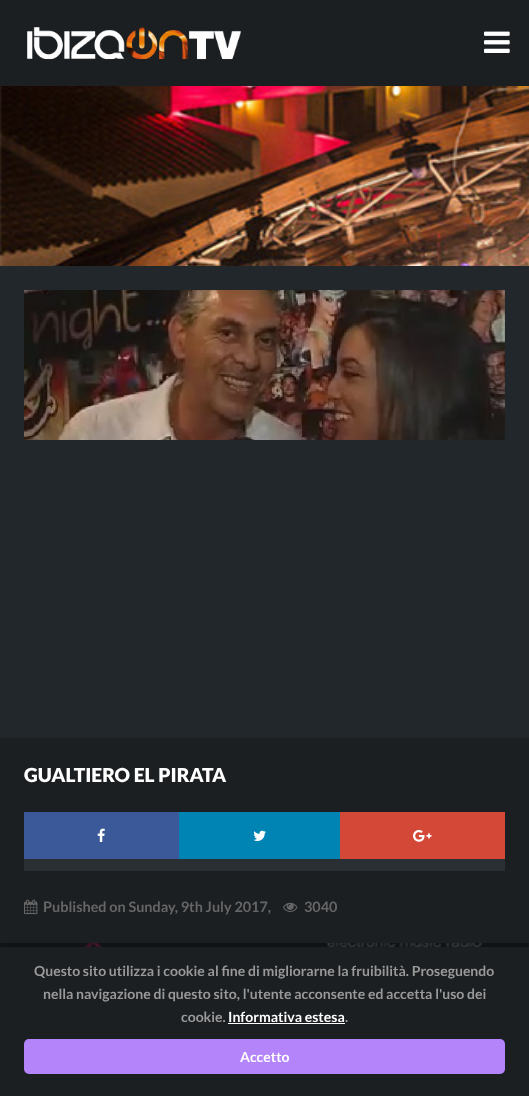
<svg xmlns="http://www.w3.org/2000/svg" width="529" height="1096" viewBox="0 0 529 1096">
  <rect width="100%" height="100%" fill="#1b1f22"/>
  <image x="27" y="27" width="214" height="33" href="img1.png"/>
  <image x="484" y="31" width="26" height="22" href="img2.png"/>
  <image x="0" y="86" width="529" height="180" href="img3.png"/>
  <rect x="0" y="266" width="529" height="472" fill="#22272b"/>
  <image x="24" y="290" width="481" height="150" href="img4.png"/>
  <text x="24" y="782" font-family="Lato" font-size="19.25" font-weight="900" fill="#ffffff">GUALTIERO EL PIRATA</text>
  <rect x="24" y="812" width="155" height="47" fill="#3b5998"/>
  <image x="97" y="828" width="8" height="14" href="img5.png"/>
  <rect x="179" y="812" width="161" height="47" fill="#0084b4"/>
  <image x="253" y="830" width="13" height="11" href="img6.png"/>
  <rect x="340" y="812" width="165" height="47" fill="#d34836"/>
  <image x="413" y="830" width="19" height="12" href="img7.png"/>
  <rect x="24" y="859" width="481" height="12" fill="#292f33"/>
  <image x="24" y="899" width="14" height="16" href="img8.png"/>
  <text x="43" y="912" font-family="Lato" font-size="14.4" font-weight="bold" fill="#666666">Published on Sunday, 9th July 2017,</text>
  <image x="283" y="902" width="15" height="10" href="img9.png"/>
  <text x="304" y="912" font-family="Lato" font-size="14.4" font-weight="bold" fill="#666666">3040</text>
  <rect x="0" y="943" width="529" height="4" fill="#141719"/>
  <image x="1" y="943" width="527" height="4" href="img10.png"/>
  <text x="34" y="976" font-family="Lato" font-size="14" font-weight="bold" fill="#999999">Questo sito utilizza i cookie al fine di migliorarne la fruibilità. Proseguendo</text>
  <text x="43" y="999" font-family="Lato" font-size="14" font-weight="bold" fill="#999999">nella navigazione di questo sito, l'utente acconsente ed accetta l'uso dei</text>
  <text x="181" y="1022" font-family="Lato" font-size="14" font-weight="bold" fill="#999999">cookie.</text>
  <text x="228" y="1022" font-family="Lato" font-size="14" font-weight="bold" fill="#ffffff">Informativa estesa</text>
  <rect x="228" y="1023" width="117" height="1" fill="#ffffff"/>
  <text x="345" y="1022" font-family="Lato" font-size="14" font-weight="bold" fill="#999999">.</text>
  <rect x="24" y="1039" width="481" height="35" rx="5" fill="#b484fa"/>
  <text x="240" y="1062" font-family="Lato" font-size="14" font-weight="bold" fill="#ffffff">Accetto</text>
</svg>
